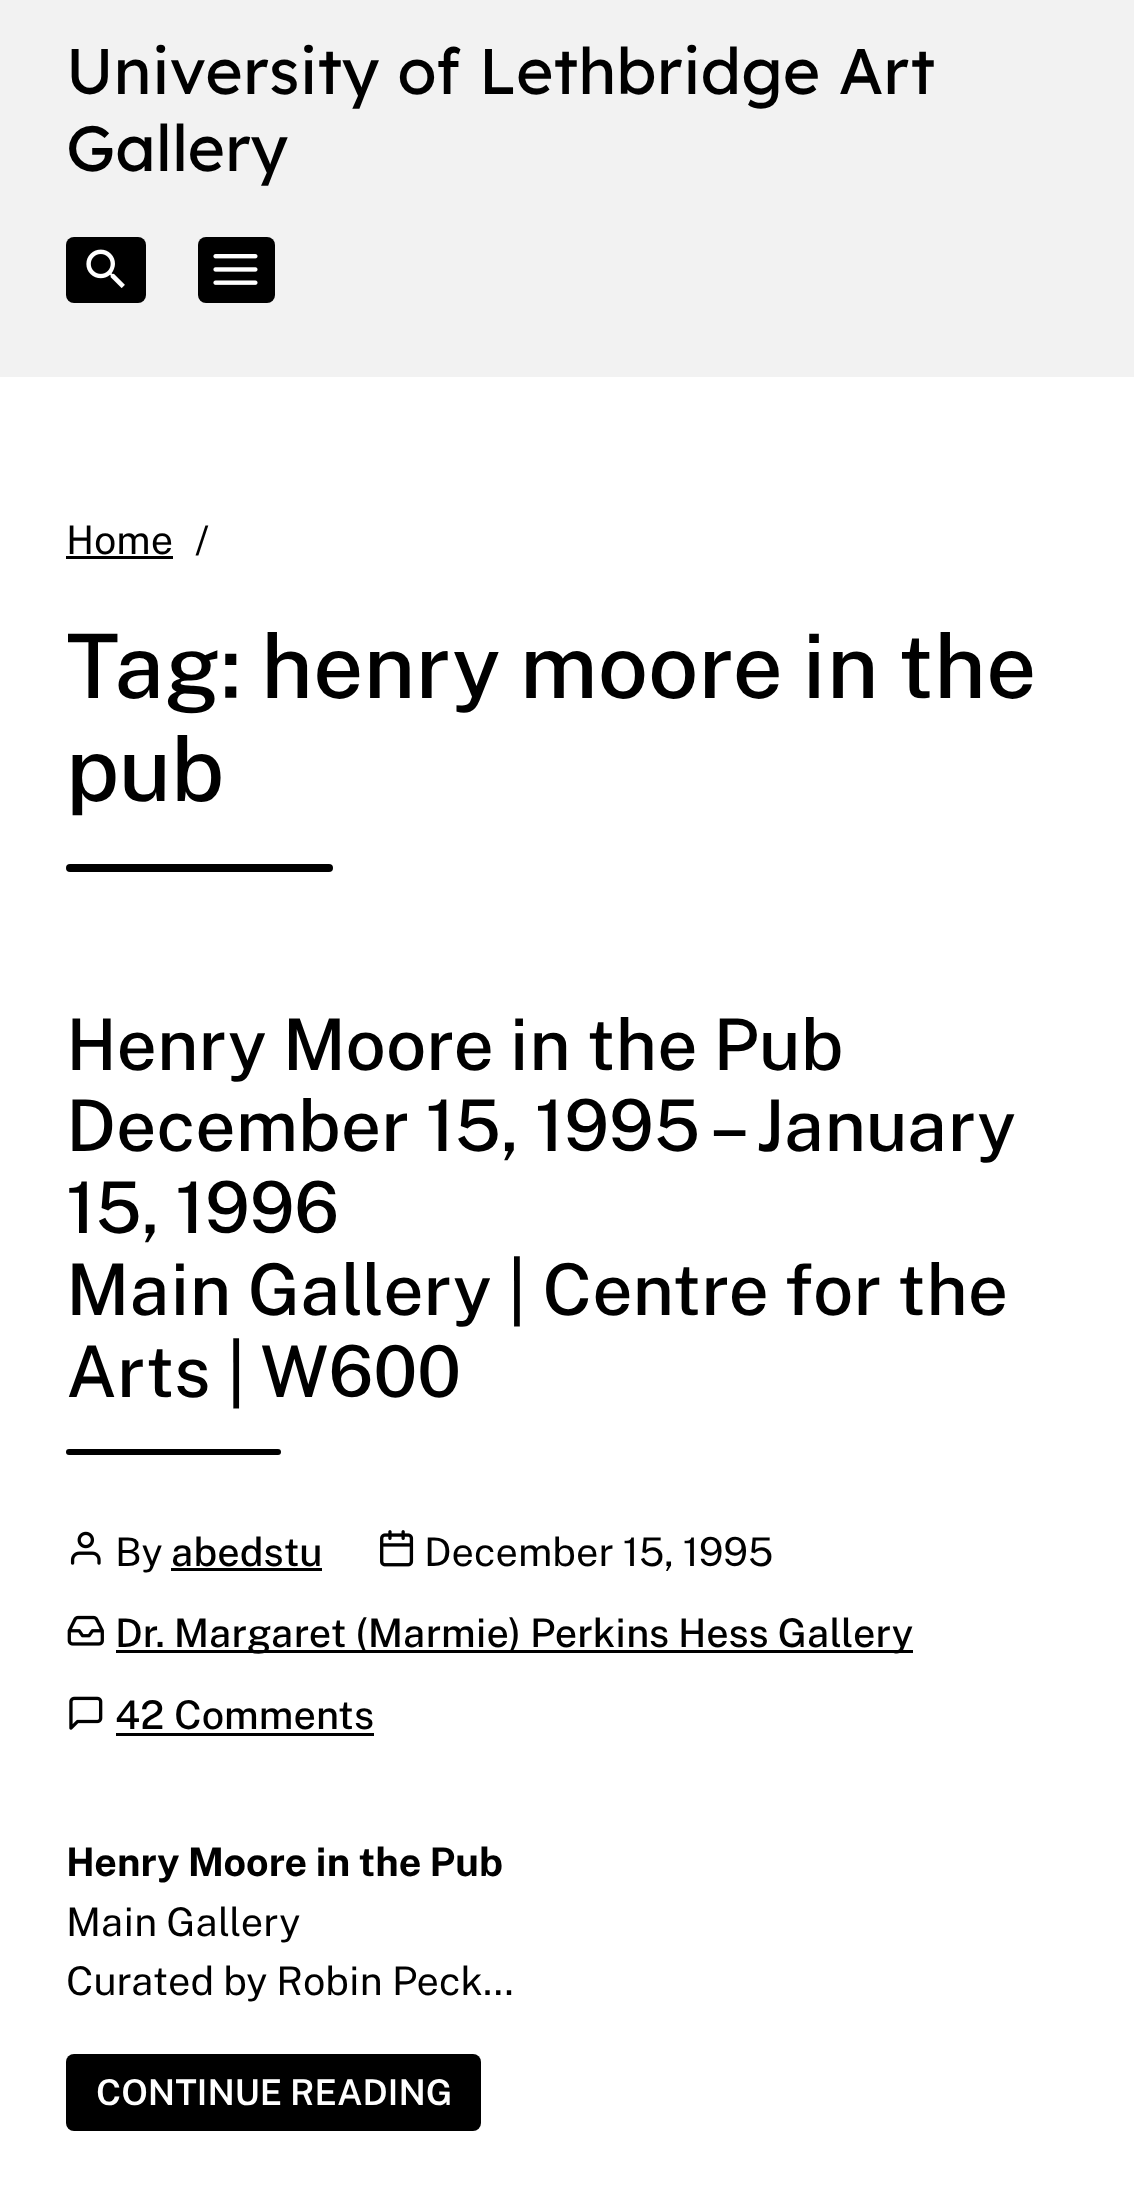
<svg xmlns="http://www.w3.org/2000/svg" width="1134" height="2198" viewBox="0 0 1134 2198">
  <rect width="100%" height="100%" fill="#ffffff"/>
  <rect x="0" y="0" width="1134" height="377" fill="#f2f2f2"/>
  <text x="66" y="94" font-family="Lexend" font-size="64.2" fill="#000000">University of Lethbridge Art</text>
  <text x="66" y="171" font-family="Lexend" font-size="64.2" fill="#000000">Gallery</text>
  <rect x="66" y="237" width="80" height="66" rx="8" fill="#000000"/>
  <image x="86" y="249" width="39" height="39" href="img1.png"/>
  <rect x="198" y="237" width="77" height="66" rx="8" fill="#000000"/>
  <image x="213" y="254" width="45" height="31" href="img2.png"/>
  <text x="66" y="554" font-family="Public Sans" font-size="39.6" fill="#000000">Home</text>
  <rect x="66" y="556" width="107" height="3" fill="#000000"/>
  <text x="195" y="554" font-family="Public Sans" font-size="39.6" fill="#000000">/</text>
  <text x="66" y="698" font-family="Public Sans" font-size="89" font-weight="500" fill="#000000">Tag:</text>
  <text x="261" y="698" word-spacing="-0.5" font-family="Public Sans" font-size="89" font-weight="500" fill="#000000">henry moore in the</text>
  <text x="66" y="801" font-family="Public Sans" font-size="89" font-weight="500" fill="#000000">pub</text>
  <rect x="66" y="864" width="267" height="8" rx="4" fill="#000000"/>
  <text x="66" y="1070" font-family="Public Sans" font-size="71.25" font-weight="500" fill="#000000">Henry Moore in the Pub</text>
  <text x="66" y="1151" font-family="Public Sans" font-size="71.25" font-weight="500" fill="#000000">December 15, 1995 – January</text>
  <text x="66" y="1233" font-family="Public Sans" font-size="71.25" font-weight="500" fill="#000000">15, 1996</text>
  <text x="66" y="1315" font-family="Public Sans" font-size="71.25" font-weight="500" fill="#000000">Main Gallery | Centre for the</text>
  <text x="66" y="1397" font-family="Public Sans" font-size="71.25" font-weight="500" fill="#000000">Arts | W600</text>
  <rect x="66" y="1449" width="215" height="6" rx="3" fill="#000000"/>
  <image x="70" y="1531" width="31" height="34" href="img3.png"/>
  <text x="115" y="1566" font-family="Public Sans" font-size="39.6" fill="#000000">By</text>
  <text x="171" y="1566" font-family="Public Sans" font-size="39.6" font-weight="500" fill="#000000">abedstu</text>
  <rect x="171" y="1568" width="151" height="3" fill="#000000"/>
  <image x="380" y="1530" width="34" height="37" href="img4.png"/>
  <text x="424" y="1566" font-family="Public Sans" font-size="39.6" fill="#000000">December 15, 1995</text>
  <image x="67" y="1615" width="37" height="31" href="img5.png"/>
  <rect x="116" y="1650" width="797" height="3" fill="#000000"/>
  <text x="115" y="1647" font-family="Public Sans" font-size="39.6" font-weight="500" fill="#000000">Dr. Margaret (Marmie) Perkins Hess Gallery</text>
  <image x="69" y="1696" width="34" height="34" href="img6.png"/>
  <text x="115" y="1729" font-family="Public Sans" font-size="39.6" font-weight="500" fill="#000000">42 Comments</text>
  <rect x="116" y="1733" width="258" height="3" fill="#000000"/>
  <text x="66" y="1876" font-family="Public Sans" font-size="39.6" font-weight="bold" fill="#000000">Henry Moore in the Pub</text>
  <text x="66" y="1936" font-family="Public Sans" font-size="39.6" fill="#000000">Main Gallery</text>
  <text x="66" y="1995" font-family="Public Sans" font-size="39.6" fill="#000000">Curated by Robin Peck…</text>
  <rect x="66" y="2054" width="415" height="77" rx="8" fill="#000000"/>
  <text x="96" y="2105" font-family="Public Sans" font-size="35.6" font-weight="600" fill="#ffffff">CONTINUE READING</text>
</svg>
